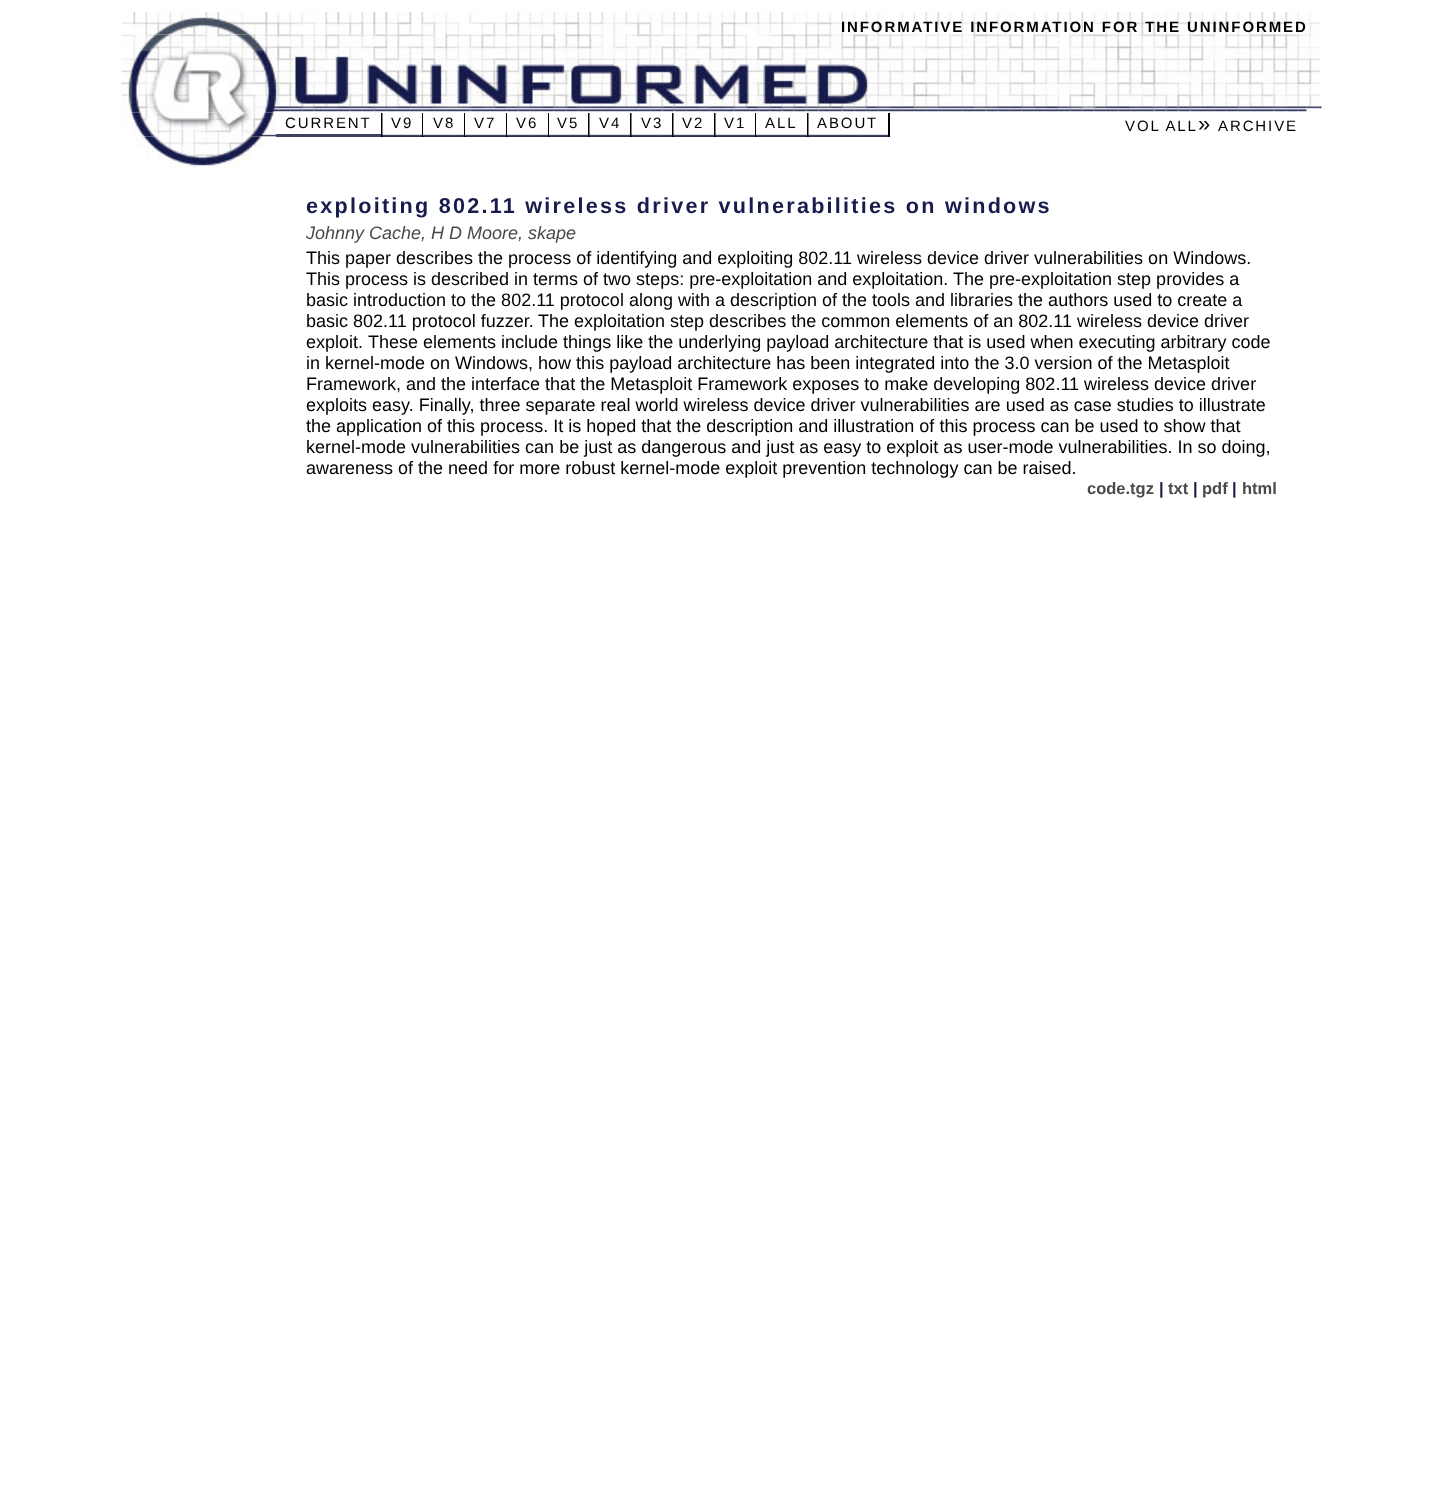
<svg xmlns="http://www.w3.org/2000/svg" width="1442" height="1504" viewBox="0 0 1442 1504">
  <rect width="100%" height="100%" fill="#ffffff"/>
  <image x="121" y="12" width="131" height="23" href="img1.png"/>
  <image x="252" y="12" width="1055" height="23" href="img2.png"/>
  <text x="841" y="32" font-family="Liberation Sans" font-size="15" font-weight="bold" letter-spacing="1.9" fill="#000000">INFORMATIVE INFORMATION FOR THE UNINFORMED</text>
  <image x="1306" y="12" width="16" height="101" href="img3.png"/>
  <image x="121" y="34" width="131" height="79" href="img4.png"/>
  <image x="252" y="34" width="1055" height="79" href="img5.png"/>
  <image x="122" y="112" width="130" height="25" href="img6.png"/>
  <image x="135" y="136" width="117" height="32" href="img7.png"/>
  <image x="252" y="112" width="24" height="25" href="img8.png"/>
  <rect x="276" y="134" width="614" height="3" fill="#3f4163"/>
  <rect x="381" y="113" width="2" height="24" fill="#000000"/>
  <text x="285" y="128" font-family="Liberation Sans" font-size="15" letter-spacing="1.9" fill="#000000">CURRENT</text>
  <image x="382" y="113" width="40" height="24" href="img9.png"/>
  <rect x="422" y="113" width="2" height="24" fill="#000000"/>
  <text x="391" y="128" font-family="Liberation Sans" font-size="15" letter-spacing="1.9" fill="#000000">V9</text>
  <image x="423" y="113" width="41" height="24" href="img10.png"/>
  <rect x="464" y="113" width="2" height="24" fill="#000000"/>
  <text x="433" y="128" font-family="Liberation Sans" font-size="15" letter-spacing="1.9" fill="#000000">V8</text>
  <image x="465" y="113" width="41" height="24" href="img11.png"/>
  <rect x="506" y="113" width="2" height="24" fill="#000000"/>
  <text x="474" y="128" font-family="Liberation Sans" font-size="15" letter-spacing="1.9" fill="#000000">V7</text>
  <image x="507" y="113" width="41" height="24" href="img11.png"/>
  <rect x="548" y="113" width="2" height="24" fill="#000000"/>
  <text x="516" y="128" font-family="Liberation Sans" font-size="15" letter-spacing="1.9" fill="#000000">V6</text>
  <image x="549" y="113" width="39" height="24" href="img12.png"/>
  <rect x="588" y="113" width="2" height="24" fill="#000000"/>
  <text x="557" y="128" font-family="Liberation Sans" font-size="15" letter-spacing="1.9" fill="#000000">V5</text>
  <image x="589" y="113" width="41" height="24" href="img13.png"/>
  <rect x="630" y="113" width="2" height="24" fill="#000000"/>
  <text x="599" y="128" font-family="Liberation Sans" font-size="15" letter-spacing="1.9" fill="#000000">V4</text>
  <image x="631" y="113" width="41" height="24" href="img13.png"/>
  <rect x="672" y="113" width="2" height="24" fill="#000000"/>
  <text x="641" y="128" font-family="Liberation Sans" font-size="15" letter-spacing="1.9" fill="#000000">V3</text>
  <image x="673" y="113" width="41" height="24" href="img13.png"/>
  <rect x="714" y="113" width="2" height="24" fill="#000000"/>
  <text x="682" y="128" font-family="Liberation Sans" font-size="15" letter-spacing="1.9" fill="#000000">V2</text>
  <image x="715" y="113" width="40" height="24" href="img14.png"/>
  <rect x="755" y="113" width="2" height="24" fill="#000000"/>
  <text x="724" y="128" font-family="Liberation Sans" font-size="15" letter-spacing="1.9" fill="#000000">V1</text>
  <image x="756" y="113" width="51" height="24" href="img15.png"/>
  <rect x="807" y="113" width="2" height="24" fill="#000000"/>
  <text x="765" y="128" font-family="Liberation Sans" font-size="15" letter-spacing="1.9" fill="#000000">ALL</text>
  <image x="808" y="113" width="80" height="24" href="img16.png"/>
  <rect x="888" y="113" width="2" height="24" fill="#000000"/>
  <text x="817" y="128" font-family="Liberation Sans" font-size="15" letter-spacing="1.9" fill="#000000">ABOUT</text>
  <text x="1125" y="131" font-family="Liberation Sans" font-size="15" letter-spacing="1.9" fill="#000000">VOL ALL</text>
  <text x="1198" y="131" font-family="Liberation Sans" font-size="22" letter-spacing="1.9" fill="#000000">»</text>
  <text x="1218" y="131" font-family="Liberation Sans" font-size="15" letter-spacing="1.9" fill="#000000">ARCHIVE</text>
  <image x="252" y="136" width="24" height="13" href="img17.png"/>
  <text x="306" y="213" font-family="Liberation Sans" font-size="21.6" font-weight="bold" letter-spacing="2.25" fill="#181c4c">exploiting 802.11 wireless driver vulnerabilities on windows</text>
  <text x="306" y="239" font-family="Liberation Sans" font-size="18" font-style="italic" fill="#4a4a4c">Johnny Cache, H D Moore, skape</text>
  <text x="306" y="264" font-family="Liberation Sans" font-size="18" fill="#000000">This paper describes the process of identifying and exploiting 802.11 wireless device driver vulnerabilities on Windows.</text>
  <text x="306" y="285" font-family="Liberation Sans" font-size="18" fill="#000000">This process is described in terms of two steps: pre-exploitation and exploitation.</text>
  <text x="953" y="285" font-family="Liberation Sans" font-size="18" fill="#000000">The pre-exploitation step provides a</text>
  <text x="306" y="306" font-family="Liberation Sans" font-size="18" fill="#000000">basic introduction to the 802.11 protocol along with a description of the tools and libraries the authors used to create a</text>
  <text x="306" y="327" font-family="Liberation Sans" font-size="18" fill="#000000">basic 802.11 protocol fuzzer.</text>
  <text x="538" y="327" font-family="Liberation Sans" font-size="18" fill="#000000">The exploitation step describes the common elements of an 802.11 wireless device driver</text>
  <text x="306" y="348" font-family="Liberation Sans" font-size="18" fill="#000000">exploit.</text>
  <text x="368" y="348" font-family="Liberation Sans" font-size="18" fill="#000000">These elements include things like the underlying payload architecture that is used when executing arbitrary code</text>
  <text x="306" y="369" font-family="Liberation Sans" font-size="18" fill="#000000">in kernel-mode on Windows, how this payload architecture has been integrated into the 3.0 version of the Metasploit</text>
  <text x="306" y="390" font-family="Liberation Sans" font-size="18" fill="#000000">Framework, and the interface that the Metasploit Framework exposes to make developing 802.11 wireless device driver</text>
  <text x="306" y="411" font-family="Liberation Sans" font-size="18" fill="#000000">exploits easy. Finally, three separate real world wireless device driver vulnerabilities are used as case studies to illustrate</text>
  <text x="306" y="432" font-family="Liberation Sans" font-size="18" fill="#000000">the application of this process. It is hoped that the description and illustration of this process can be used to show that</text>
  <text x="306" y="453" font-family="Liberation Sans" font-size="18" fill="#000000">kernel-mode vulnerabilities can be just as dangerous and just as easy to exploit as user-mode vulnerabilities. In so doing,</text>
  <text x="306" y="474" font-family="Liberation Sans" font-size="18" fill="#000000">awareness of the need for more robust kernel-mode exploit prevention technology can be raised.</text>
  <text x="1087" y="494" font-family="Liberation Sans" font-size="16.5" font-weight="bold" fill="#4a4a4c">code.tgz</text>
  <text x="1159" y="494" font-family="Liberation Sans" font-size="16.5" font-weight="bold" fill="#181c4c">|</text>
  <text x="1168" y="494" font-family="Liberation Sans" font-size="16.5" font-weight="bold" fill="#4a4a4c">txt</text>
  <text x="1193" y="494" font-family="Liberation Sans" font-size="16.5" font-weight="bold" fill="#181c4c">|</text>
  <text x="1202" y="494" font-family="Liberation Sans" font-size="16.5" font-weight="bold" fill="#4a4a4c">pdf</text>
  <text x="1232" y="494" font-family="Liberation Sans" font-size="16.5" font-weight="bold" fill="#181c4c">|</text>
  <text x="1242" y="494" font-family="Liberation Sans" font-size="16.5" font-weight="bold" fill="#4a4a4c">html</text>
</svg>
